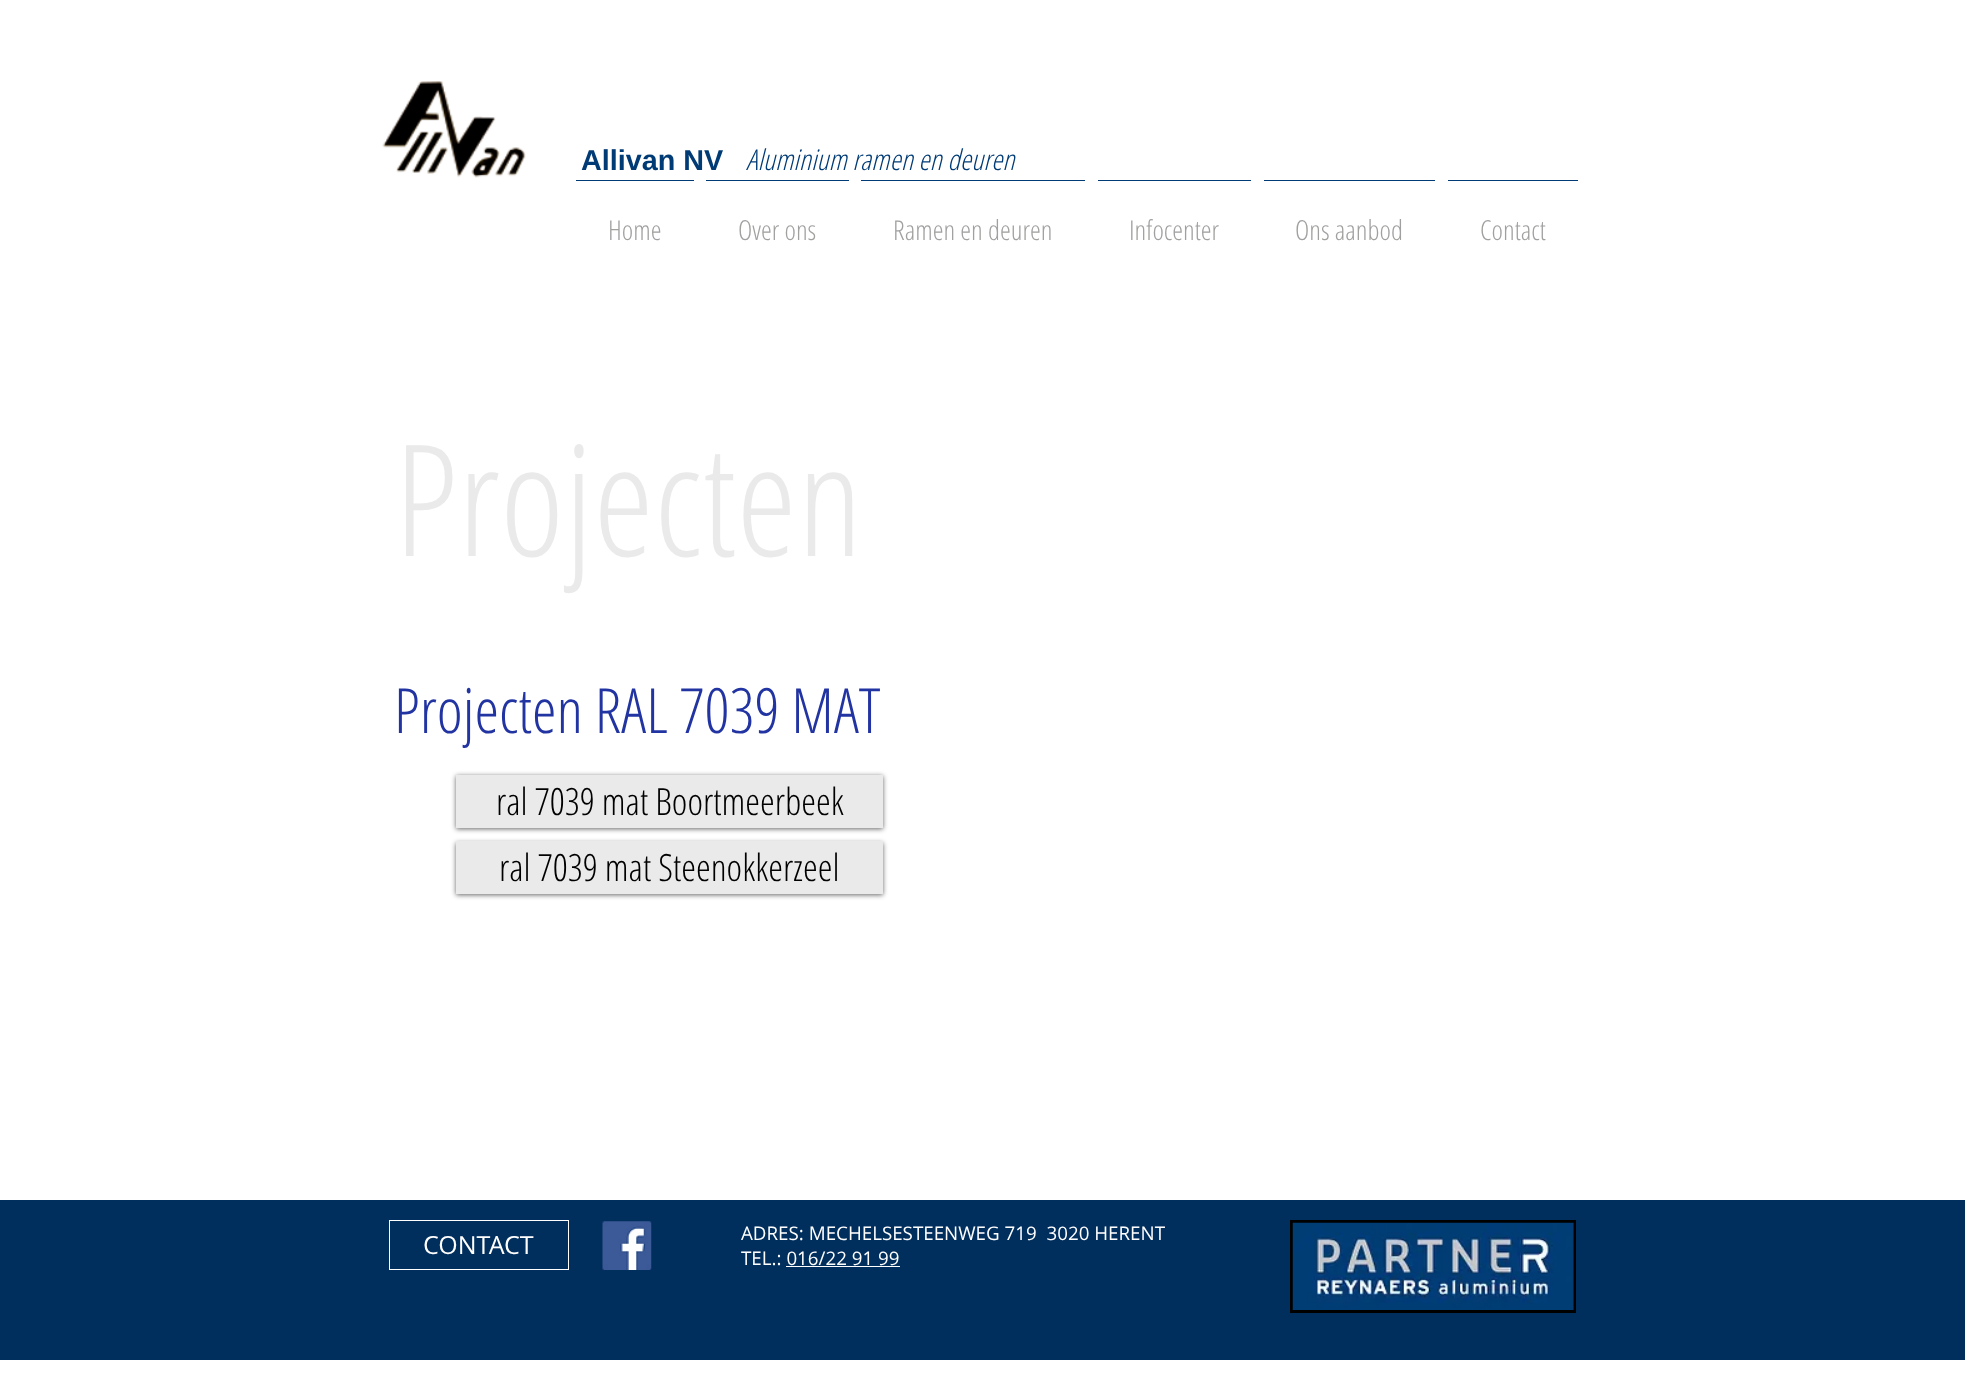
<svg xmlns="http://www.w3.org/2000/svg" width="1965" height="1375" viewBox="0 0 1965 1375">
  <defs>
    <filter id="blur1" x="-50%" y="-200%" width="200%" height="500%"><feGaussianBlur stdDeviation="2.5"/></filter>
  </defs>
  <rect width="100%" height="100%" fill="#ffffff"/>
  <image x="382" y="81" width="144" height="97" href="img1.png"/>
  <text x="581" y="170" font-family="Liberation Sans" font-size="28.75" font-weight="bold" fill="#013b75">Allivan NV</text>
  <text x="746" y="170" font-family="Open Sans Condensed" font-size="28.75" font-weight="300" font-style="italic" fill="#013b75">Aluminium ramen en deuren</text>
  <rect x="576" y="180" width="118" height="1" fill="#013b75"/>
  <text x="608" y="240" font-family="Open Sans Condensed" font-size="27.5" font-weight="300" fill="#a0a09f">Home</text>
  <rect x="706" y="180" width="143" height="1" fill="#013b75"/>
  <text x="738" y="240" font-family="Open Sans Condensed" font-size="27.5" font-weight="300" fill="#a0a09f">Over ons</text>
  <rect x="861" y="180" width="224" height="1" fill="#013b75"/>
  <text x="893" y="240" font-family="Open Sans Condensed" font-size="27.5" font-weight="300" fill="#a0a09f">Ramen en deuren</text>
  <rect x="1098" y="180" width="153" height="1" fill="#013b75"/>
  <text x="1129" y="240" font-family="Open Sans Condensed" font-size="27.5" font-weight="300" fill="#a0a09f">Infocenter</text>
  <rect x="1264" y="180" width="171" height="1" fill="#013b75"/>
  <text x="1295" y="240" font-family="Open Sans Condensed" font-size="27.5" font-weight="300" fill="#a0a09f">Ons aanbod</text>
  <rect x="1448" y="180" width="130" height="1" fill="#013b75"/>
  <text x="1480" y="240" font-family="Open Sans Condensed" font-size="27.5" font-weight="300" fill="#a0a09f">Contact</text>
  <text x="394" y="556" font-family="Open Sans Condensed" font-size="155" font-weight="300" fill="#eaeaea">Projecten</text>
  <text x="394" y="733" font-family="Open Sans Condensed" font-size="62.5" font-weight="300" fill="#2234a2">Projecten RAL 7039 MAT</text>
  <rect x="456" y="776" width="427" height="53" fill="#000000" fill-opacity="0.6" filter="url(#blur1)"/>
  <rect x="456" y="775" width="427" height="53" fill="#eaeaea"/>
  <text x="496" y="815" font-family="Open Sans Condensed" font-size="37.5" font-weight="300" fill="#000000">ral 7039 mat Boortmeerbeek</text>
  <rect x="456" y="843" width="427" height="52" fill="#000000" fill-opacity="0.6" filter="url(#blur1)"/>
  <rect x="456" y="841" width="427" height="53" fill="#eaeaea"/>
  <text x="499" y="881" font-family="Open Sans Condensed" font-size="37.5" font-weight="300" fill="#000000">ral 7039 mat Steenokkerzeel</text>
  <rect x="0" y="1200" width="1965" height="160" fill="#002e5d"/>
  <rect x="389.5" y="1220.5" width="179" height="49" fill="none" stroke="#ffffff"/>
  <text x="423" y="1254" font-family="Open Sans" font-size="25" fill="#ffffff">CONTACT</text>
  <image x="602" y="1221" width="50" height="49" href="img2.png"/>
  <text x="741" y="1240" font-family="Open Sans" font-size="18.75" fill="#ffffff" xml:space="preserve">ADRES: MECHELSESTEENWEG 719  3020 HERENT</text>
  <text x="741" y="1265" font-family="Open Sans" font-size="18.75" fill="#ffffff">TEL.: 016/22 91 99</text>
  <rect x="786" y="1266" width="114" height="1" fill="#ffffff"/>
  <rect x="1291.5" y="1221.5" width="283" height="90" fill="none" stroke="#000000" stroke-width="3"/>
  <image x="1292" y="1222" width="282" height="88" href="img3.png"/>
</svg>
